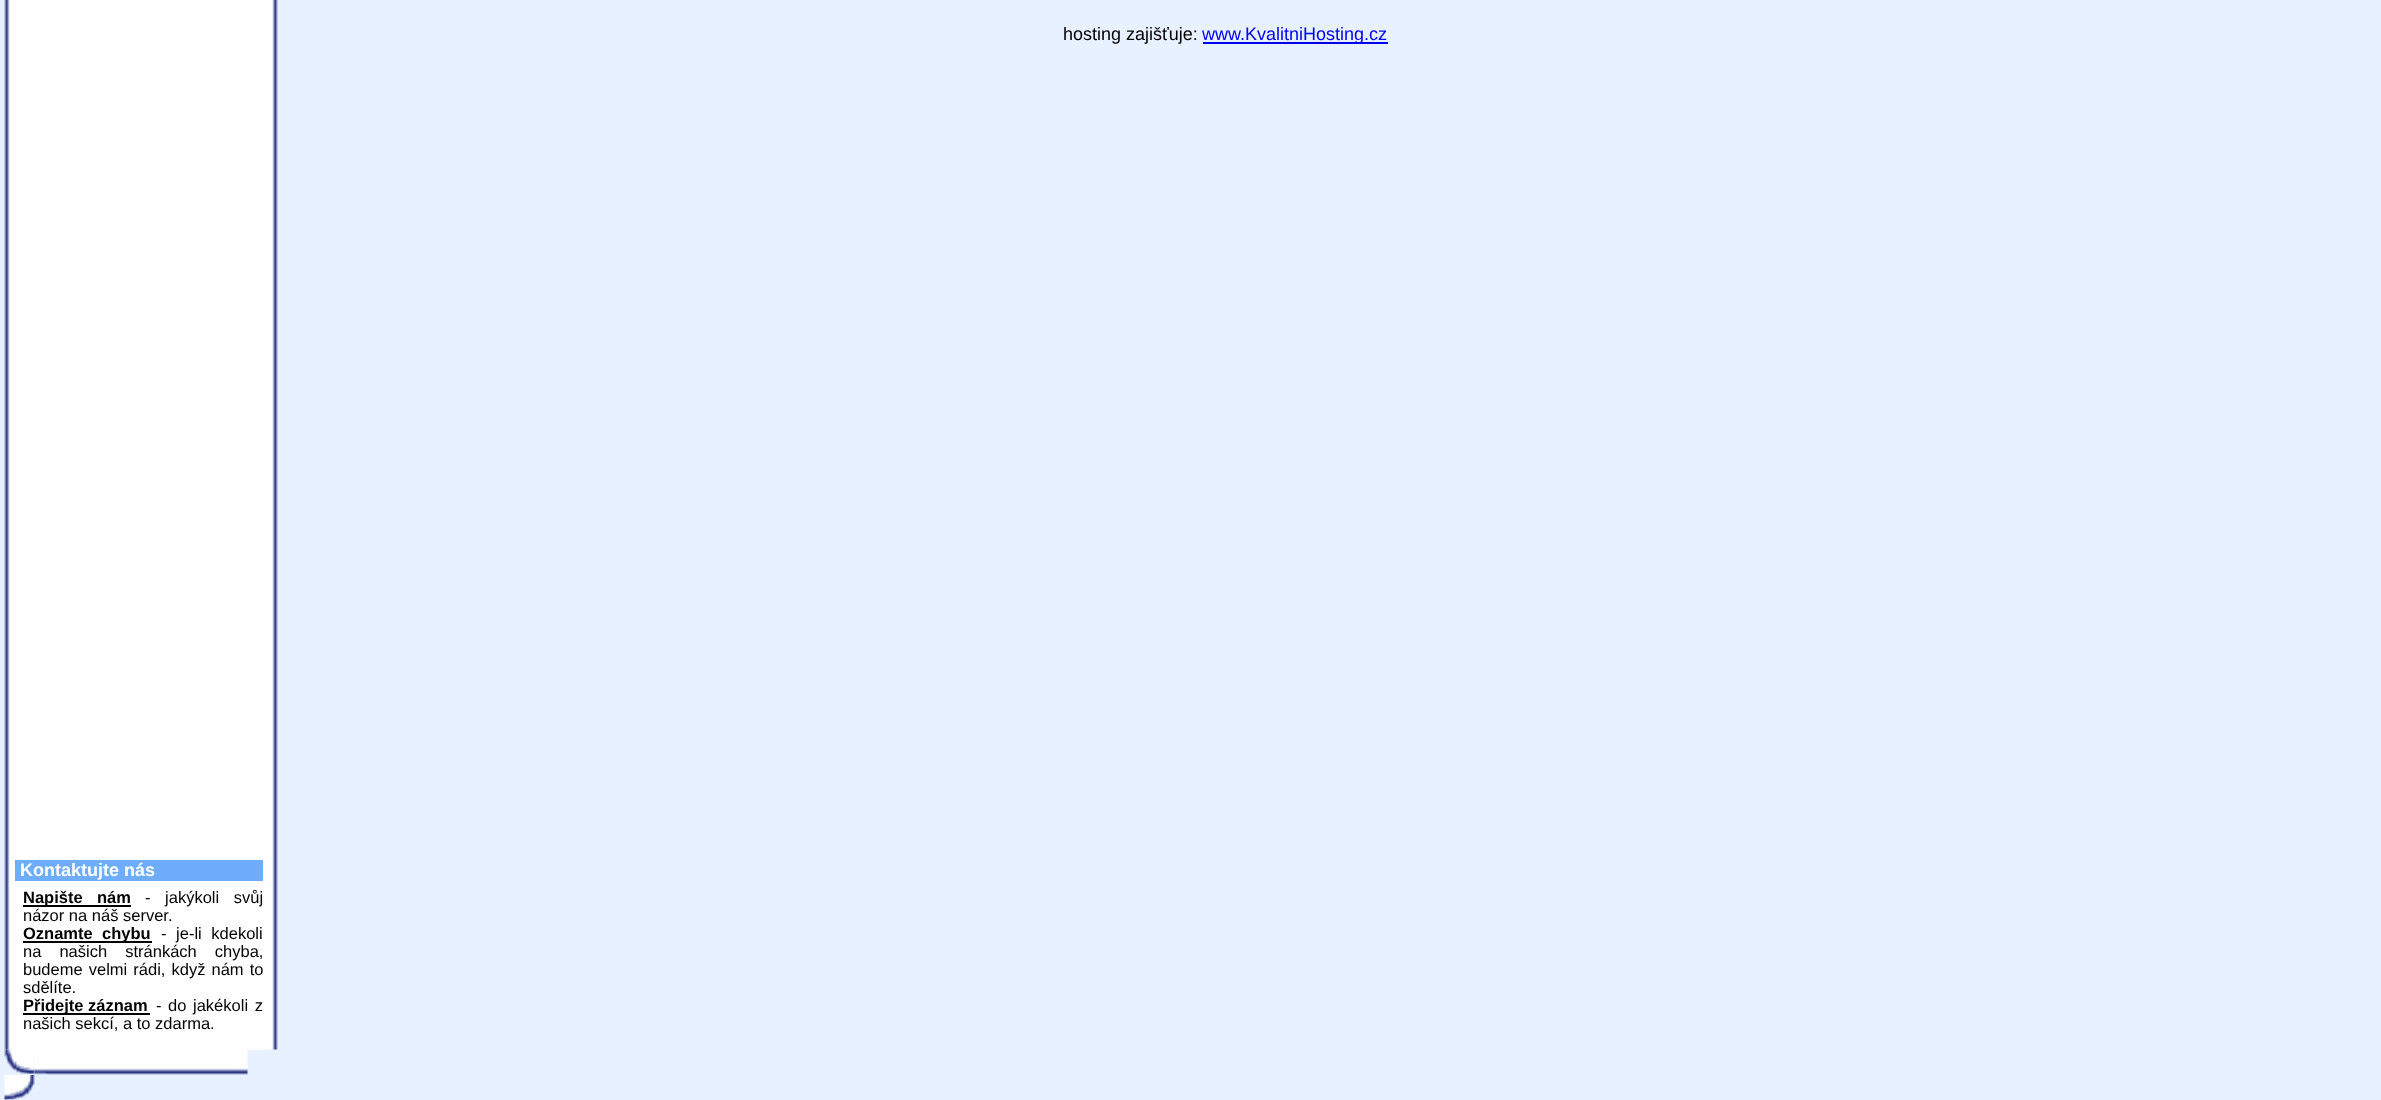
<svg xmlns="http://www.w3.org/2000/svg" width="2381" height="1100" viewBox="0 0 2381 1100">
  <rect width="100%" height="100%" fill="#e7f1ff"/>
  <text x="1063" y="40" font-family="Liberation Sans" font-size="18" fill="#000000">hosting zajišťuje:</text>
  <rect x="1203" y="42" width="185" height="2" fill="#0000ee"/>
  <text x="1202" y="40" font-family="Liberation Sans" font-size="18" fill="#0000ee">www.KvalitniHosting.cz</text>
  <image x="4" y="0" width="11" height="1050" href="img1.png"/>
  <rect x="15" y="0" width="252" height="1050" fill="#ffffff"/>
  <rect x="15" y="860" width="248" height="21" fill="#6dadfc"/>
  <text x="20" y="876" font-family="Liberation Sans" font-size="18" font-weight="bold" fill="#ffffff">Kontaktujte nás</text>
  <rect x="23" y="905" width="108" height="2" fill="#000000"/>
  <text x="23" y="903" font-family="Liberation Sans" font-size="16.5" font-weight="bold" fill="#000000">Napište</text>
  <text x="97" y="903" font-family="Liberation Sans" font-size="16.5" font-weight="bold" fill="#000000">nám</text>
  <text x="145" y="903" word-spacing="10" font-family="Liberation Sans" font-size="16.5" fill="#000000">- jakýkoli svůj</text>
  <text x="23" y="921" font-family="Liberation Sans" font-size="16.5" fill="#000000">názor na náš server.</text>
  <rect x="23" y="941" width="129" height="2" fill="#000000"/>
  <text x="23" y="939" font-family="Liberation Sans" font-size="16.5" font-weight="bold" fill="#000000">Oznamte</text>
  <text x="102" y="939" font-family="Liberation Sans" font-size="16.5" font-weight="bold" fill="#000000">chybu</text>
  <text x="161" y="939" word-spacing="5" font-family="Liberation Sans" font-size="16.5" fill="#000000">- je-li kdekoli</text>
  <text x="23" y="957" word-spacing="13.5" font-family="Liberation Sans" font-size="16.5" fill="#000000">na našich stránkách chyba,</text>
  <text x="23" y="975" word-spacing="1.5" font-family="Liberation Sans" font-size="16.5" fill="#000000">budeme velmi rádi, když nám to</text>
  <text x="23" y="993" font-family="Liberation Sans" font-size="16.5" fill="#000000">sdělíte.</text>
  <rect x="23" y="1013" width="127" height="2" fill="#000000"/>
  <text x="23" y="1011" font-family="Liberation Sans" font-size="16.5" font-weight="bold" fill="#000000">Přidejte záznam</text>
  <text x="156" y="1011" word-spacing="2" font-family="Liberation Sans" font-size="16.5" fill="#000000">- do jakékoli z</text>
  <text x="23" y="1029" font-family="Liberation Sans" font-size="16.5" fill="#000000">našich sekcí, a to zdarma.</text>
  <image x="267" y="0" width="11" height="1050" href="img2.png"/>
  <image x="4" y="1049" width="31" height="26" href="img3.png"/>
  <image x="34" y="1050" width="214" height="25" href="img4.png"/>
  <image x="4" y="1075" width="31" height="25" href="img5.png"/>
</svg>
